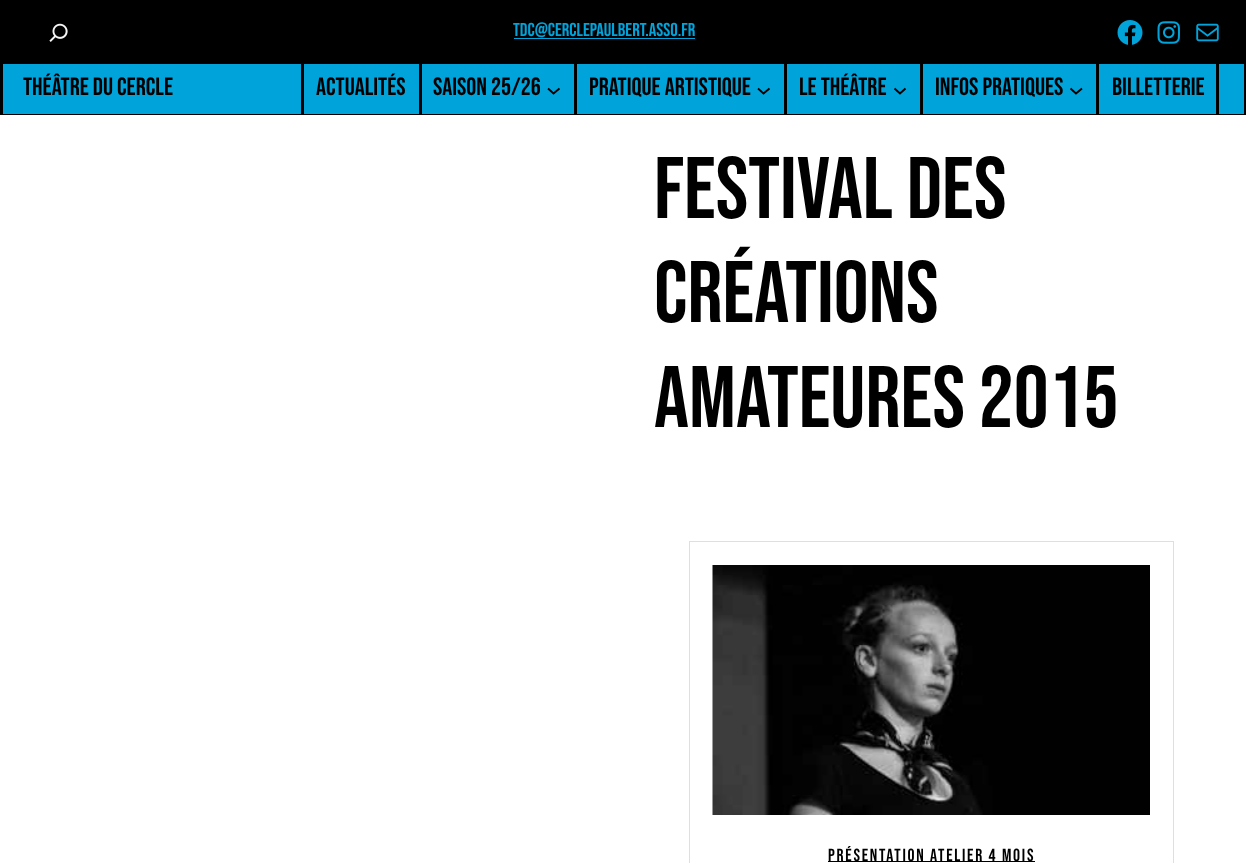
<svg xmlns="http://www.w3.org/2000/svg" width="1246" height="863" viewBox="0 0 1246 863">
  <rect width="100%" height="100%" fill="#ffffff"/>
  <rect x="0" y="0" width="1246" height="64" fill="#000000"/>
  <image x="49" y="23" width="19" height="19" href="img1.png"/>
  <text x="513" y="36" font-family="Bebas Neue" font-size="18.75" fill="#00a3da">TDC@CERCLEPAULBERT.ASSO.FR</text>
  <rect x="514" y="38" width="181" height="1" fill="#00a3da"/>
  <image x="1117" y="20" width="26" height="25" href="img2.png"/>
  <image x="1157" y="21" width="23" height="23" href="img3.png"/>
  <image x="1196" y="23" width="23" height="19" href="img4.png"/>
  <rect x="3" y="64" width="1241" height="50" fill="#00a3da"/>
  <rect x="1244" y="61" width="2" height="54" fill="#000000"/>
  <rect x="0" y="114" width="1246" height="1" fill="#000000"/>
  <rect x="0" y="61" width="3" height="54" fill="#000000"/>
  <text x="23" y="95" font-family="Bebas Neue" font-size="25" fill="#000000">THÉÂTRE DU CERCLE</text>
  <rect x="301" y="64" width="3" height="50" fill="#000000"/>
  <rect x="419" y="64" width="3" height="50" fill="#000000"/>
  <text x="316" y="95" font-family="Bebas Neue" font-size="25" fill="#000000">ACTUALITÉS</text>
  <rect x="574" y="64" width="3" height="50" fill="#000000"/>
  <text x="433" y="95" font-family="Bebas Neue" font-size="25" fill="#000000">SAISON 25/26</text>
  <path d="M548 88.5L553.5 93.5L559.5 88.5" fill="none" stroke="#000000" stroke-width="1.9"/>
  <rect x="784" y="64" width="3" height="50" fill="#000000"/>
  <text x="589" y="95" font-family="Bebas Neue" font-size="25" fill="#000000">PRATIQUE ARTISTIQUE</text>
  <path d="M758 88.5L763.5 93.5L769.5 88.5" fill="none" stroke="#000000" stroke-width="1.9"/>
  <rect x="920" y="64" width="3" height="50" fill="#000000"/>
  <text x="799" y="95" font-family="Bebas Neue" font-size="25" fill="#000000">LE THÉÂTRE</text>
  <path d="M894.5 88.5L900 93.5L905.5 88.5" fill="none" stroke="#000000" stroke-width="1.9"/>
  <rect x="1096" y="64" width="3" height="50" fill="#000000"/>
  <text x="935" y="95" font-family="Bebas Neue" font-size="25" fill="#000000">INFOS PRATIQUES</text>
  <path d="M1070.5 88.5L1076 93.5L1082 88.5" fill="none" stroke="#000000" stroke-width="1.9"/>
  <rect x="1216" y="64" width="3" height="50" fill="#000000"/>
  <text x="1112" y="95" font-family="Bebas Neue" font-size="25" fill="#000000">BILLETTERIE</text>
  <text x="654" y="218" font-family="Bebas Neue" font-size="87.25" fill="#000000">FESTIVAL DES</text>
  <text x="654" y="322" font-family="Bebas Neue" font-size="87.25" fill="#000000">CRÉATIONS</text>
  <text x="654" y="427" font-family="Bebas Neue" font-size="87.25" fill="#000000">AMATEURES 2015</text>
  <rect x="689.5" y="541.5" width="484" height="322" fill="none" stroke="#969696" stroke-opacity="0.3"/>
  <image x="712" y="565" width="438" height="250" href="img5.png"/>
  <rect x="828" y="861" width="207" height="1" fill="#000000"/>
  <text x="828" y="861" font-family="Bebas Neue" font-size="17.5" letter-spacing="1.75" fill="#000000">PRÉSENTATION ATELIER 4 MOIS</text>
</svg>
